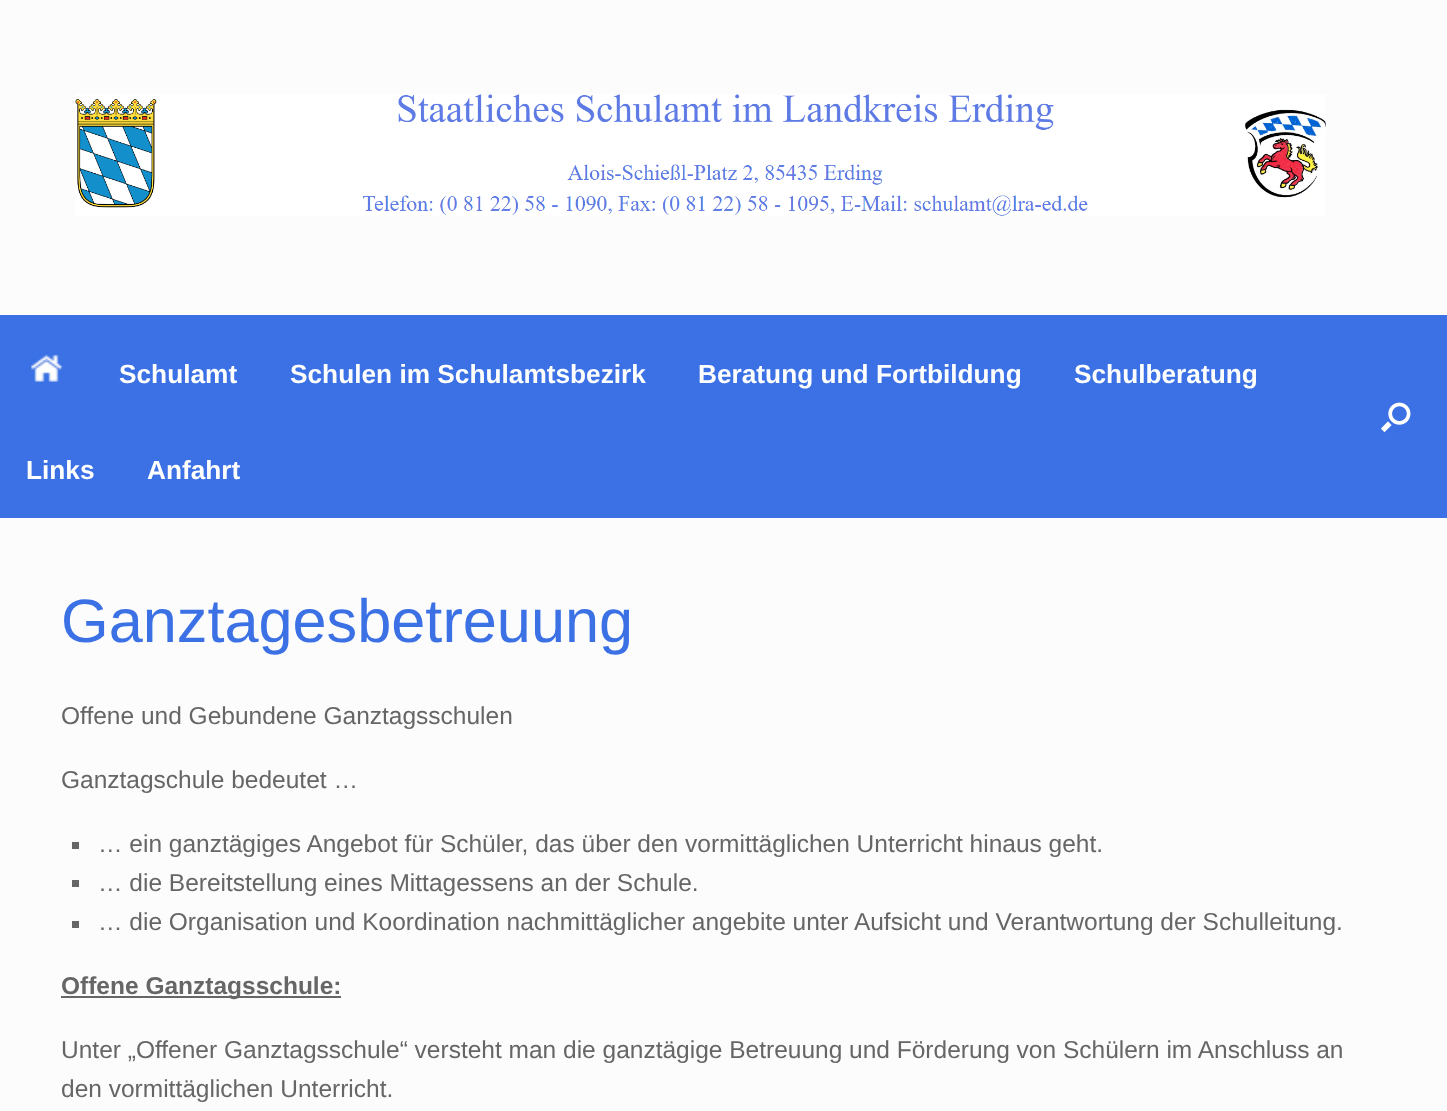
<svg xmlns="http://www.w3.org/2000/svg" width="1447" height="1111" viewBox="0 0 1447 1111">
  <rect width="100%" height="100%" fill="#fcfcfc"/>
  <image x="75" y="94" width="1251" height="122" href="img1.png"/>
  <rect x="0" y="315" width="1447" height="203" fill="#3b71e5"/>
  <image x="30" y="354" width="33" height="28" href="img2.png"/>
  <text x="119" y="383" font-family="Liberation Sans" font-size="26.25" font-weight="bold" fill="#ffffff">Schulamt</text>
  <text x="290" y="383" font-family="Liberation Sans" font-size="26.25" font-weight="bold" fill="#ffffff">Schulen im Schulamtsbezirk</text>
  <text x="698" y="383" font-family="Liberation Sans" font-size="26.25" font-weight="bold" fill="#ffffff">Beratung und Fortbildung</text>
  <text x="1074" y="383" font-family="Liberation Sans" font-size="26.25" font-weight="bold" fill="#ffffff">Schulberatung</text>
  <text x="26" y="479" font-family="Liberation Sans" font-size="26.25" font-weight="bold" fill="#ffffff">Links</text>
  <text x="147" y="479" font-family="Liberation Sans" font-size="26.25" font-weight="bold" fill="#ffffff">Anfahrt</text>
  <image x="1381" y="402" width="30" height="31" href="img3.png"/>
  <text x="61" y="642" font-family="Liberation Sans" font-size="61.25" fill="#3b71e5">Ganztagesbetreuung</text>
  <text x="61" y="724" font-family="Liberation Sans" font-size="24.5" fill="#666666">Offene und Gebundene Ganztagsschulen</text>
  <text x="61" y="788" font-family="Liberation Sans" font-size="24.5" fill="#666666">Ganztagschule bedeutet …</text>
  <rect x="72" y="842" width="7" height="7" fill="#666666"/>
  <text x="98" y="852" font-family="Liberation Sans" font-size="24.5" fill="#666666">… ein ganztägiges Angebot für Schüler, das über den vormittäglichen Unterricht hinaus geht.</text>
  <rect x="72" y="880" width="7" height="7" fill="#666666"/>
  <text x="98" y="891" font-family="Liberation Sans" font-size="24.5" fill="#666666">… die Bereitstellung eines Mittagessens an der Schule.</text>
  <rect x="72" y="921" width="7" height="7" fill="#666666"/>
  <text x="98" y="930" font-family="Liberation Sans" font-size="24.5" fill="#666666">… die Organisation und Koordination nachmittäglicher angebite unter Aufsicht und Verantwortung der Schulleitung.</text>
  <rect x="61" y="996" width="280" height="2" fill="#666666"/>
  <text x="61" y="994" font-family="Liberation Sans" font-size="24.5" font-weight="bold" fill="#666666">Offene Ganztagsschule:</text>
  <text x="61" y="1058" font-family="Liberation Sans" font-size="24.5" fill="#666666">Unter „Offener Ganztagsschule“ versteht man die ganztägige Betreuung und Förderung von Schülern im Anschluss an</text>
  <text x="61" y="1097" font-family="Liberation Sans" font-size="24.5" fill="#666666">den vormittäglichen Unterricht.</text>
</svg>
